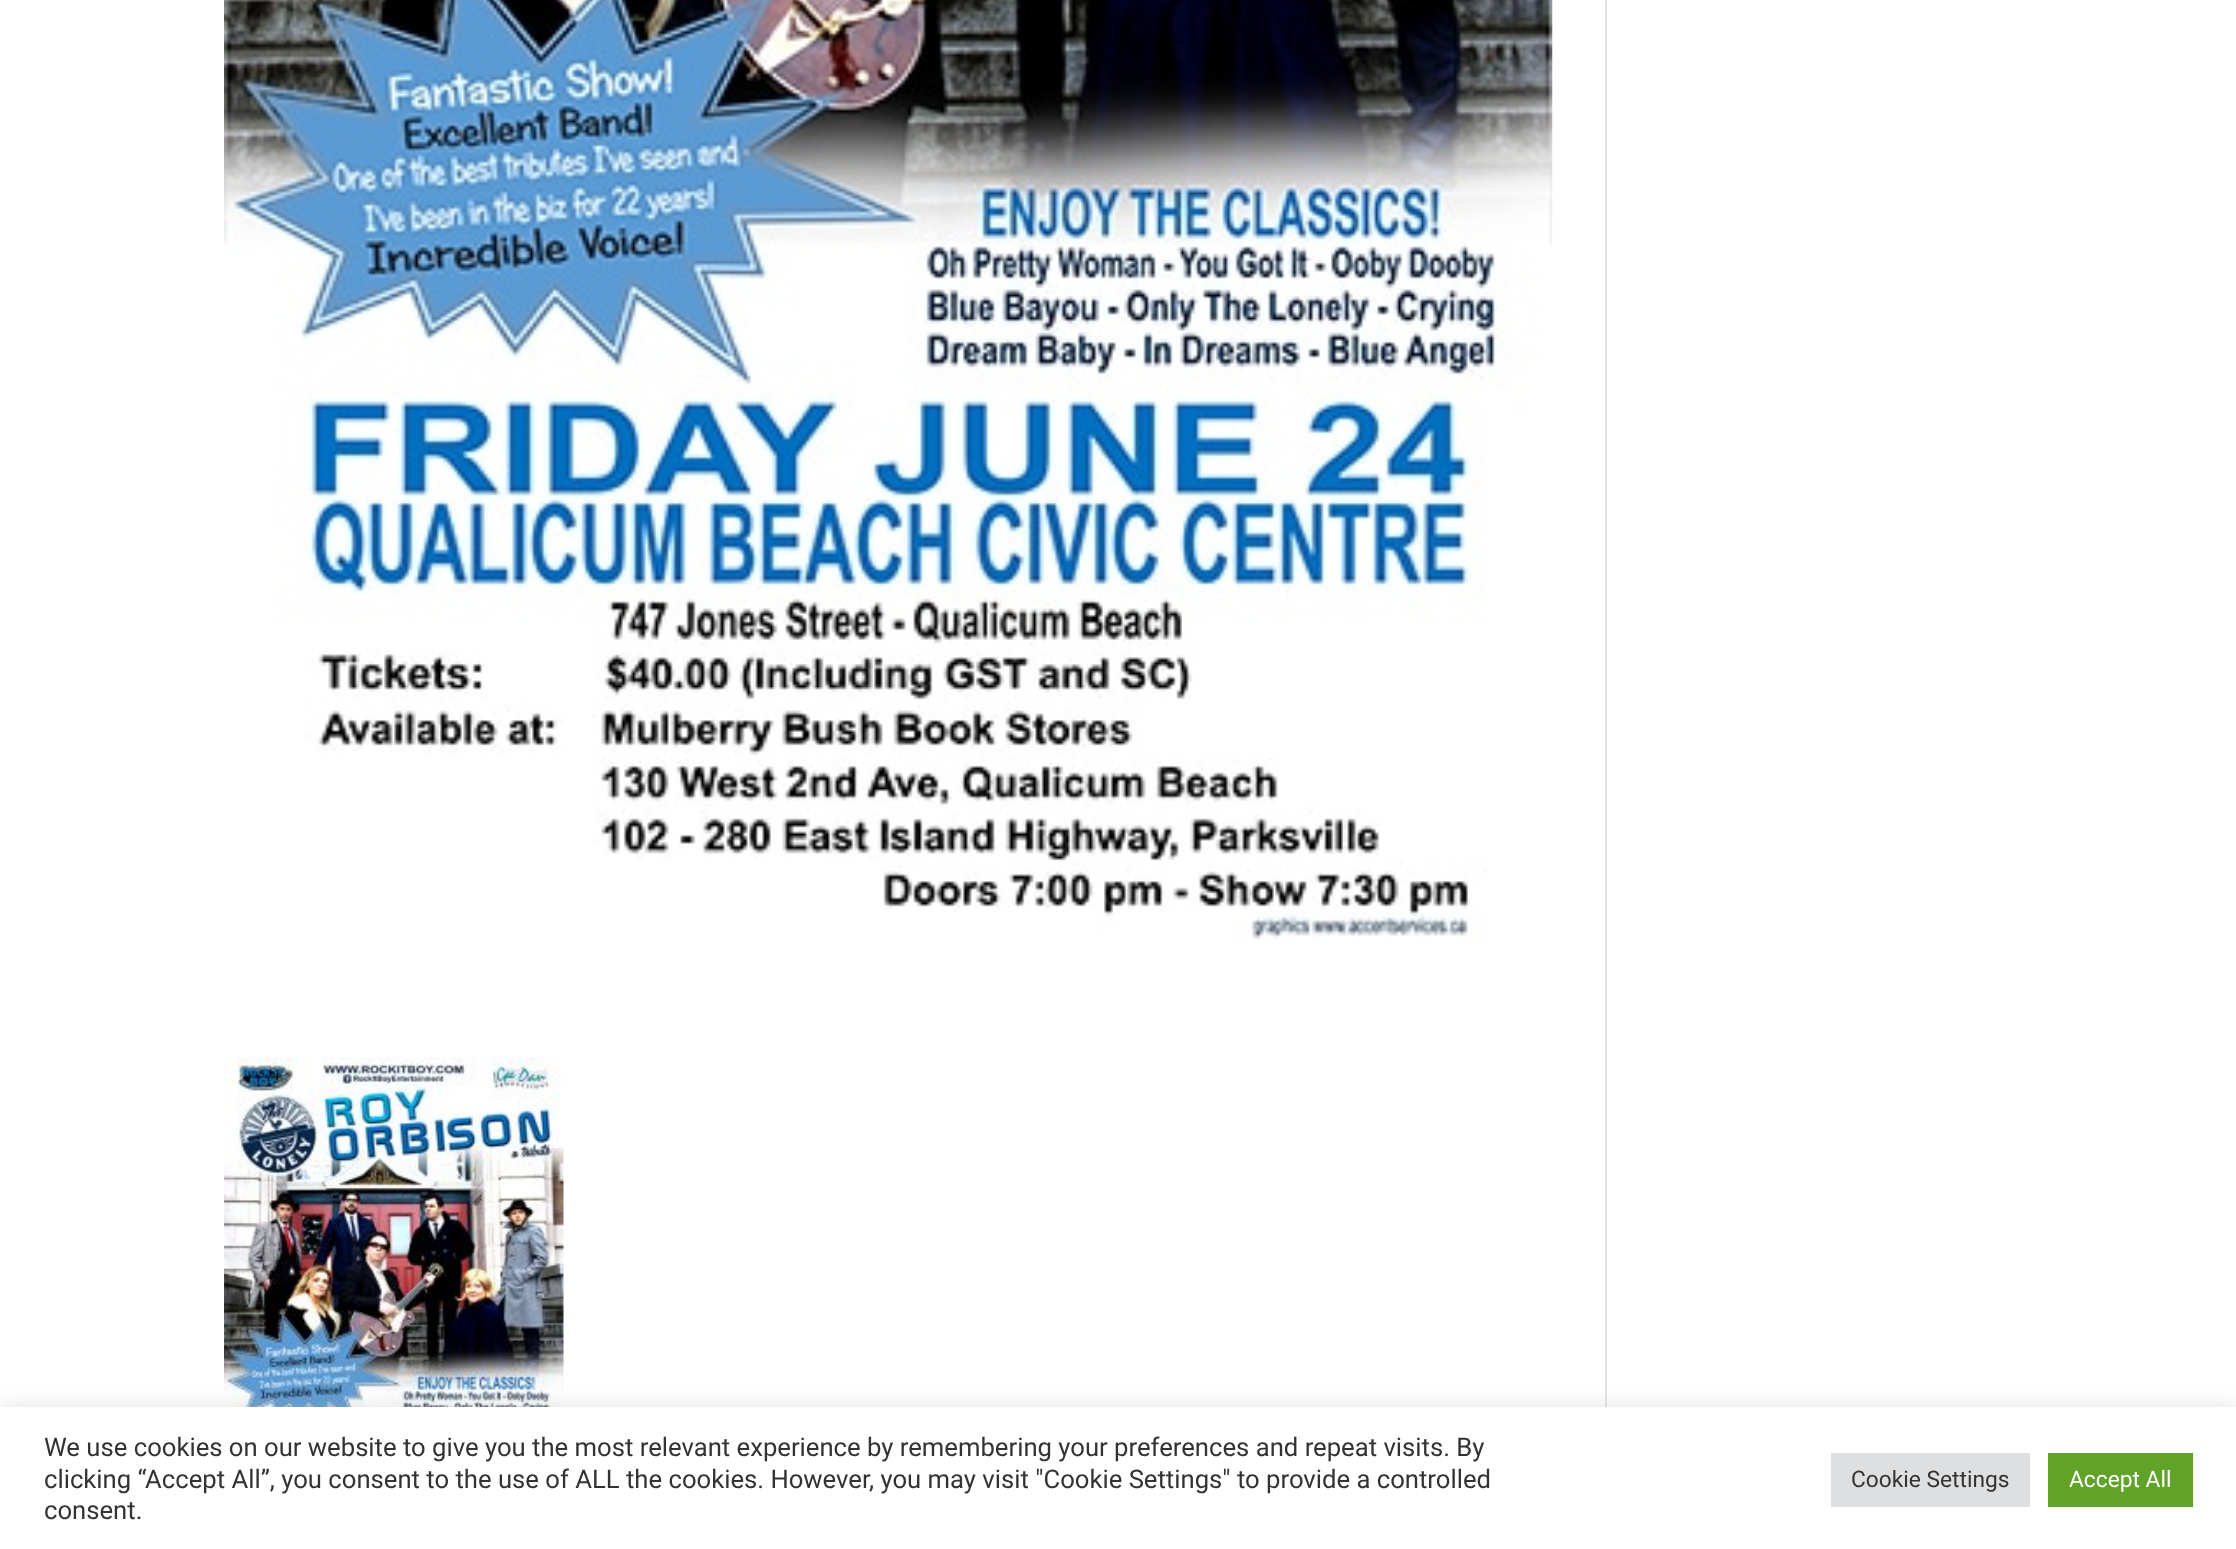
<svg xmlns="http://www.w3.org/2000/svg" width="2236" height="1549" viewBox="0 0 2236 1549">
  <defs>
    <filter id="blur1" x="-50%" y="-200%" width="200%" height="500%"><feGaussianBlur stdDeviation="9"/></filter>
  </defs>
  <rect width="100%" height="100%" fill="#ffffff"/>
  <image x="224" y="0" width="1329" height="940" href="img1.png"/>
  <image x="224" y="1057" width="340" height="350" href="img2.png"/>
  <rect x="1605" y="0" width="2" height="1407" fill="#e2e2e2"/>
  <rect x="0" y="1405" width="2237" height="144" fill="#acabab" fill-opacity="0.3" filter="url(#blur1)"/>
  <rect x="0" y="1407" width="2236" height="142" fill="#ffffff"/>
  <text x="44" y="1456" font-family="Roboto" font-size="25.67" fill="#333333">We use cookies on our website to give you the most relevant experience by remembering your preferences and repeat visits. By</text>
  <text x="44" y="1488" font-family="Roboto" font-size="25.67" fill="#333333">clicking “Accept All”, you consent to the use of ALL the cookies. However, you may visit "Cookie Settings" to provide a controlled</text>
  <text x="44" y="1519" font-family="Roboto" font-size="25.67" fill="#333333">consent.</text>
  <rect x="1831" y="1453" width="199" height="54" fill="#dedfe0"/>
  <text x="1851" y="1487" font-family="Roboto" font-size="22.75" fill="#333333">Cookie Settings</text>
  <rect x="2048" y="1453" width="145" height="54" fill="#61a229"/>
  <text x="2069" y="1487" font-family="Roboto" font-size="22.75" fill="#ffffff">Accept All</text>
</svg>
